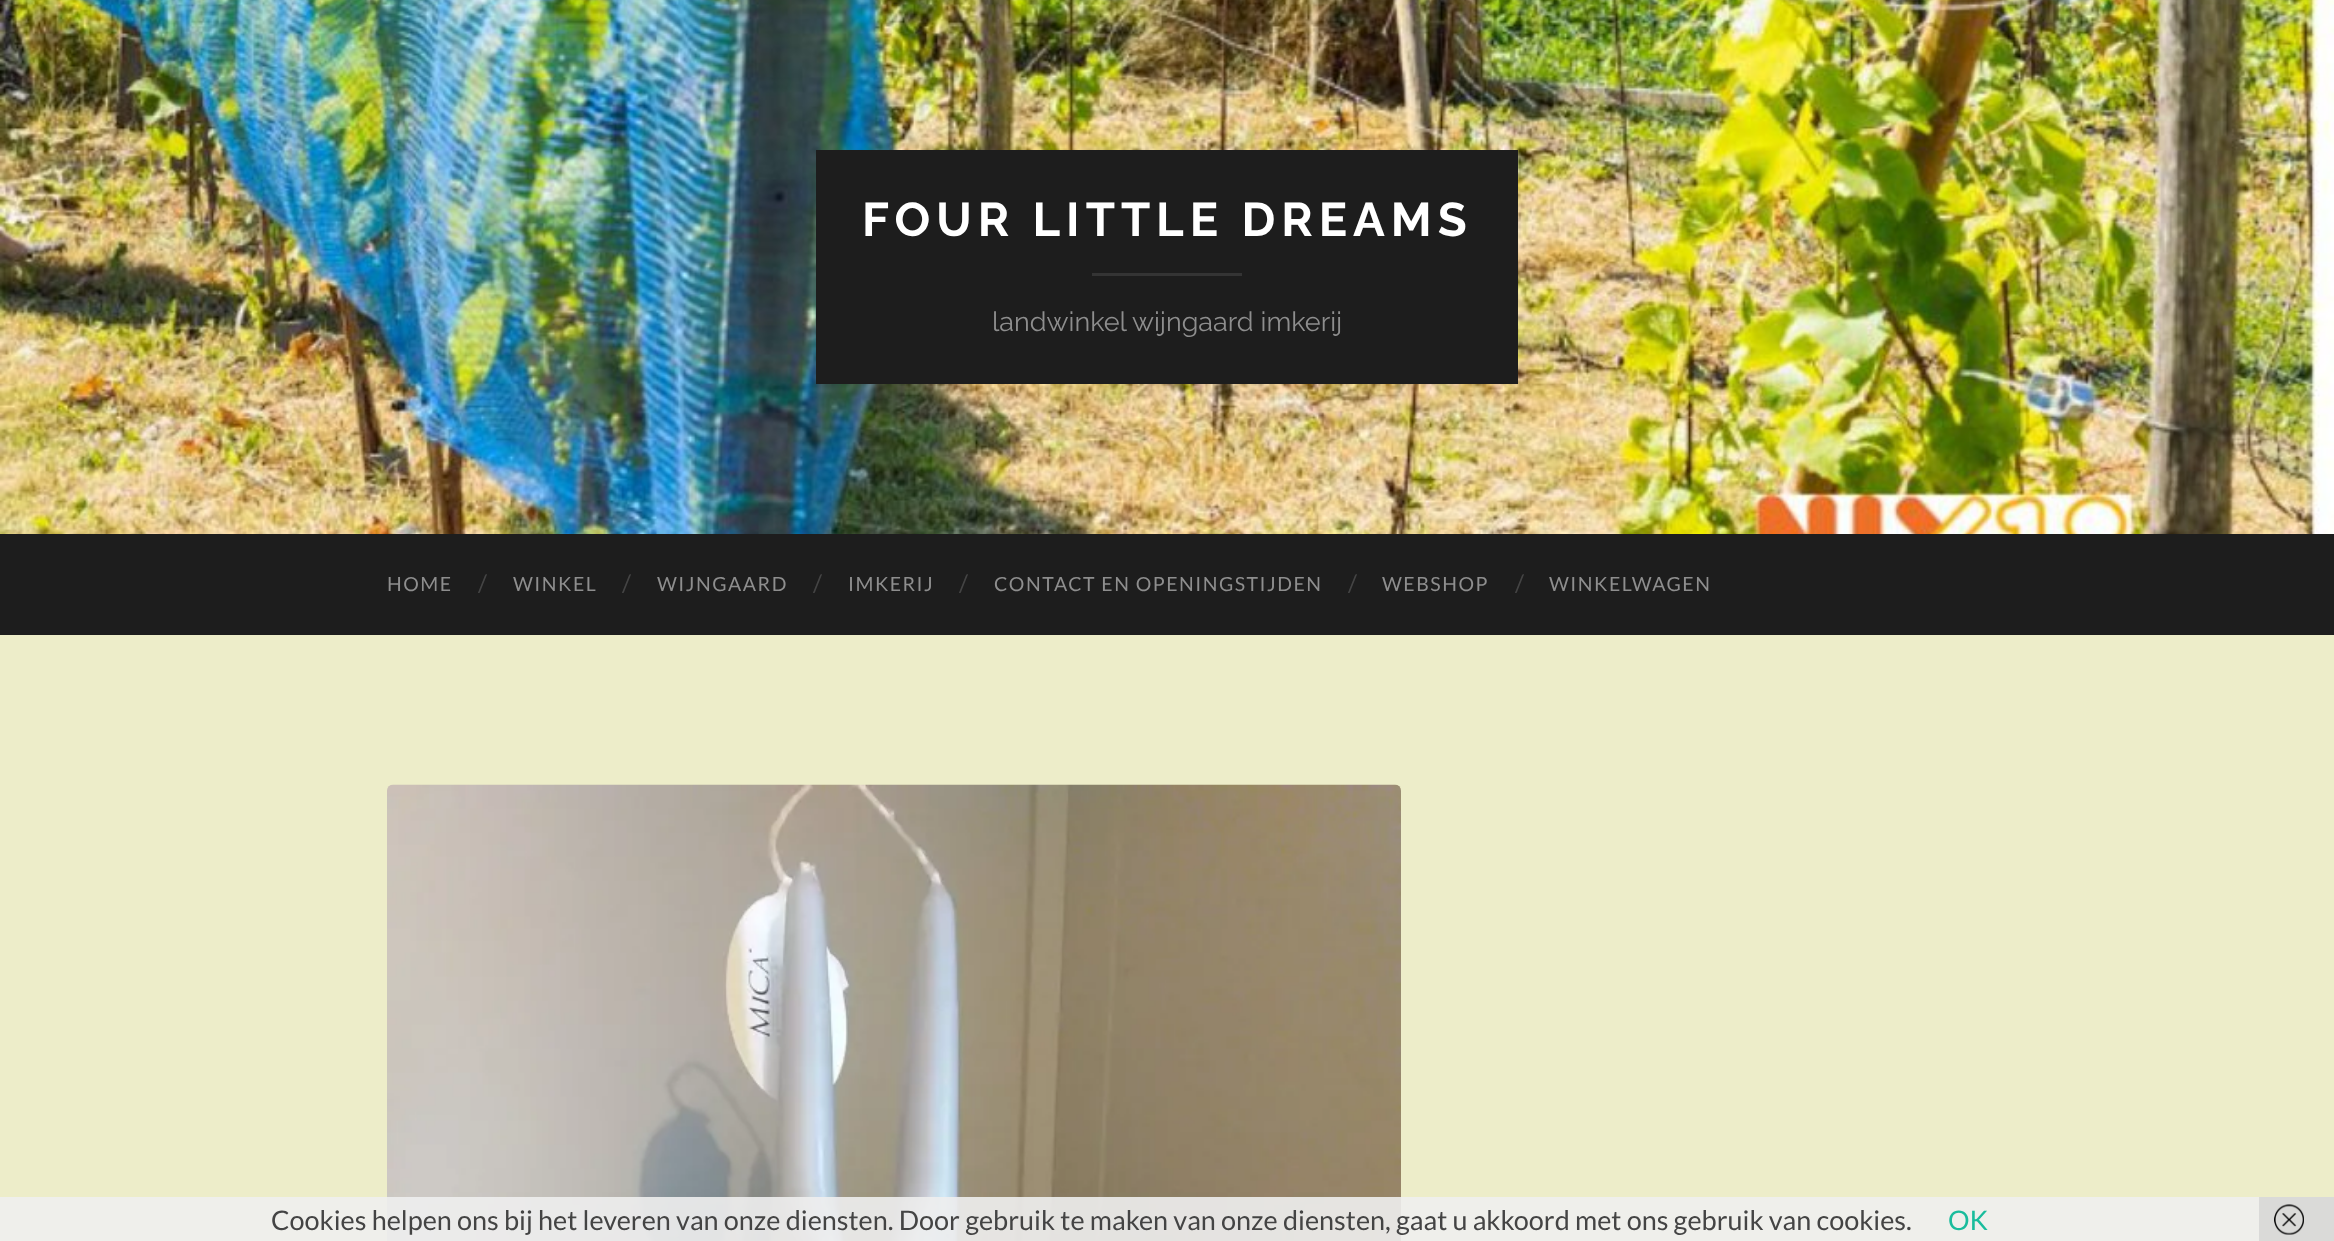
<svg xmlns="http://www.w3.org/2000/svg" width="2334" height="1241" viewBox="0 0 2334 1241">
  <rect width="100%" height="100%" fill="#ededc9"/>
  <image x="0" y="0" width="2334" height="534" href="img1.png"/>
  <rect x="816" y="150" width="702" height="234" fill="#1d1d1d"/>
  <text x="862" y="236" font-family="Raleway" font-size="47.25" font-weight="100" letter-spacing="6" fill="#ffffff">FOUR LITTLE DREAMS</text>
  <rect x="1092" y="273" width="150" height="3" fill="#343434"/>
  <text x="992" y="331" font-family="'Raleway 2'" font-size="27" font-weight="100" fill="#8e8e8e">landwinkel</text>
  <text x="1132" y="331" font-family="'Raleway 2'" font-size="27" font-weight="100" fill="#8e8e8e">wijngaard imkerij</text>
  <rect x="0" y="534" width="2334" height="101" fill="#1d1d1d"/>
  <text x="387" y="591" font-family="Lato" font-size="19.5" letter-spacing="1.5" fill="#8e8e8e">HOME</text>
  <text x="478" y="592" font-family="Lato" font-size="24" fill="#444444">/</text>
  <text x="513" y="591" font-family="Lato" font-size="19.5" letter-spacing="1.5" fill="#8e8e8e">WINKEL</text>
  <text x="622" y="592" font-family="Lato" font-size="24" fill="#444444">/</text>
  <text x="657" y="591" font-family="Lato" font-size="19.5" letter-spacing="1.5" fill="#8e8e8e">WIJNGAARD</text>
  <text x="813" y="592" font-family="Lato" font-size="24" fill="#444444">/</text>
  <text x="848" y="591" font-family="Lato" font-size="19.5" letter-spacing="1.5" fill="#8e8e8e">IMKERIJ</text>
  <text x="959" y="592" font-family="Lato" font-size="24" fill="#444444">/</text>
  <text x="994" y="591" font-family="Lato" font-size="19.5" letter-spacing="1.5" fill="#8e8e8e">CONTACT EN OPENINGSTIJDEN</text>
  <text x="1348" y="592" font-family="Lato" font-size="24" fill="#444444">/</text>
  <text x="1382" y="591" font-family="Lato" font-size="19.5" letter-spacing="1.5" fill="#8e8e8e">WEBSHOP</text>
  <text x="1515" y="592" font-family="Lato" font-size="24" fill="#444444">/</text>
  <text x="1549" y="591" font-family="Lato" font-size="19.5" letter-spacing="1.5" fill="#8e8e8e">WINKELWAGEN</text>
  <image x="387" y="784" width="1014" height="457" href="img2.png"/>
  <rect x="0" y="1197" width="2259" height="44" fill="#eeeeee" fill-opacity="0.9"/>
  <text x="271" y="1230" font-family="Lato" font-size="27" fill="#444444">Cookies helpen ons bij het leveren van onze diensten. Door gebruik te maken van onze diensten, gaat u akkoord met ons gebruik van cookies.</text>
  <text x="1948" y="1230" font-family="Lato" font-size="27" fill="#1abc9c">OK</text>
  <rect x="2259" y="1197" width="75" height="44" fill="#dadad8"/>
  <image x="2274" y="1204" width="30" height="31" href="img3.png"/>
</svg>
